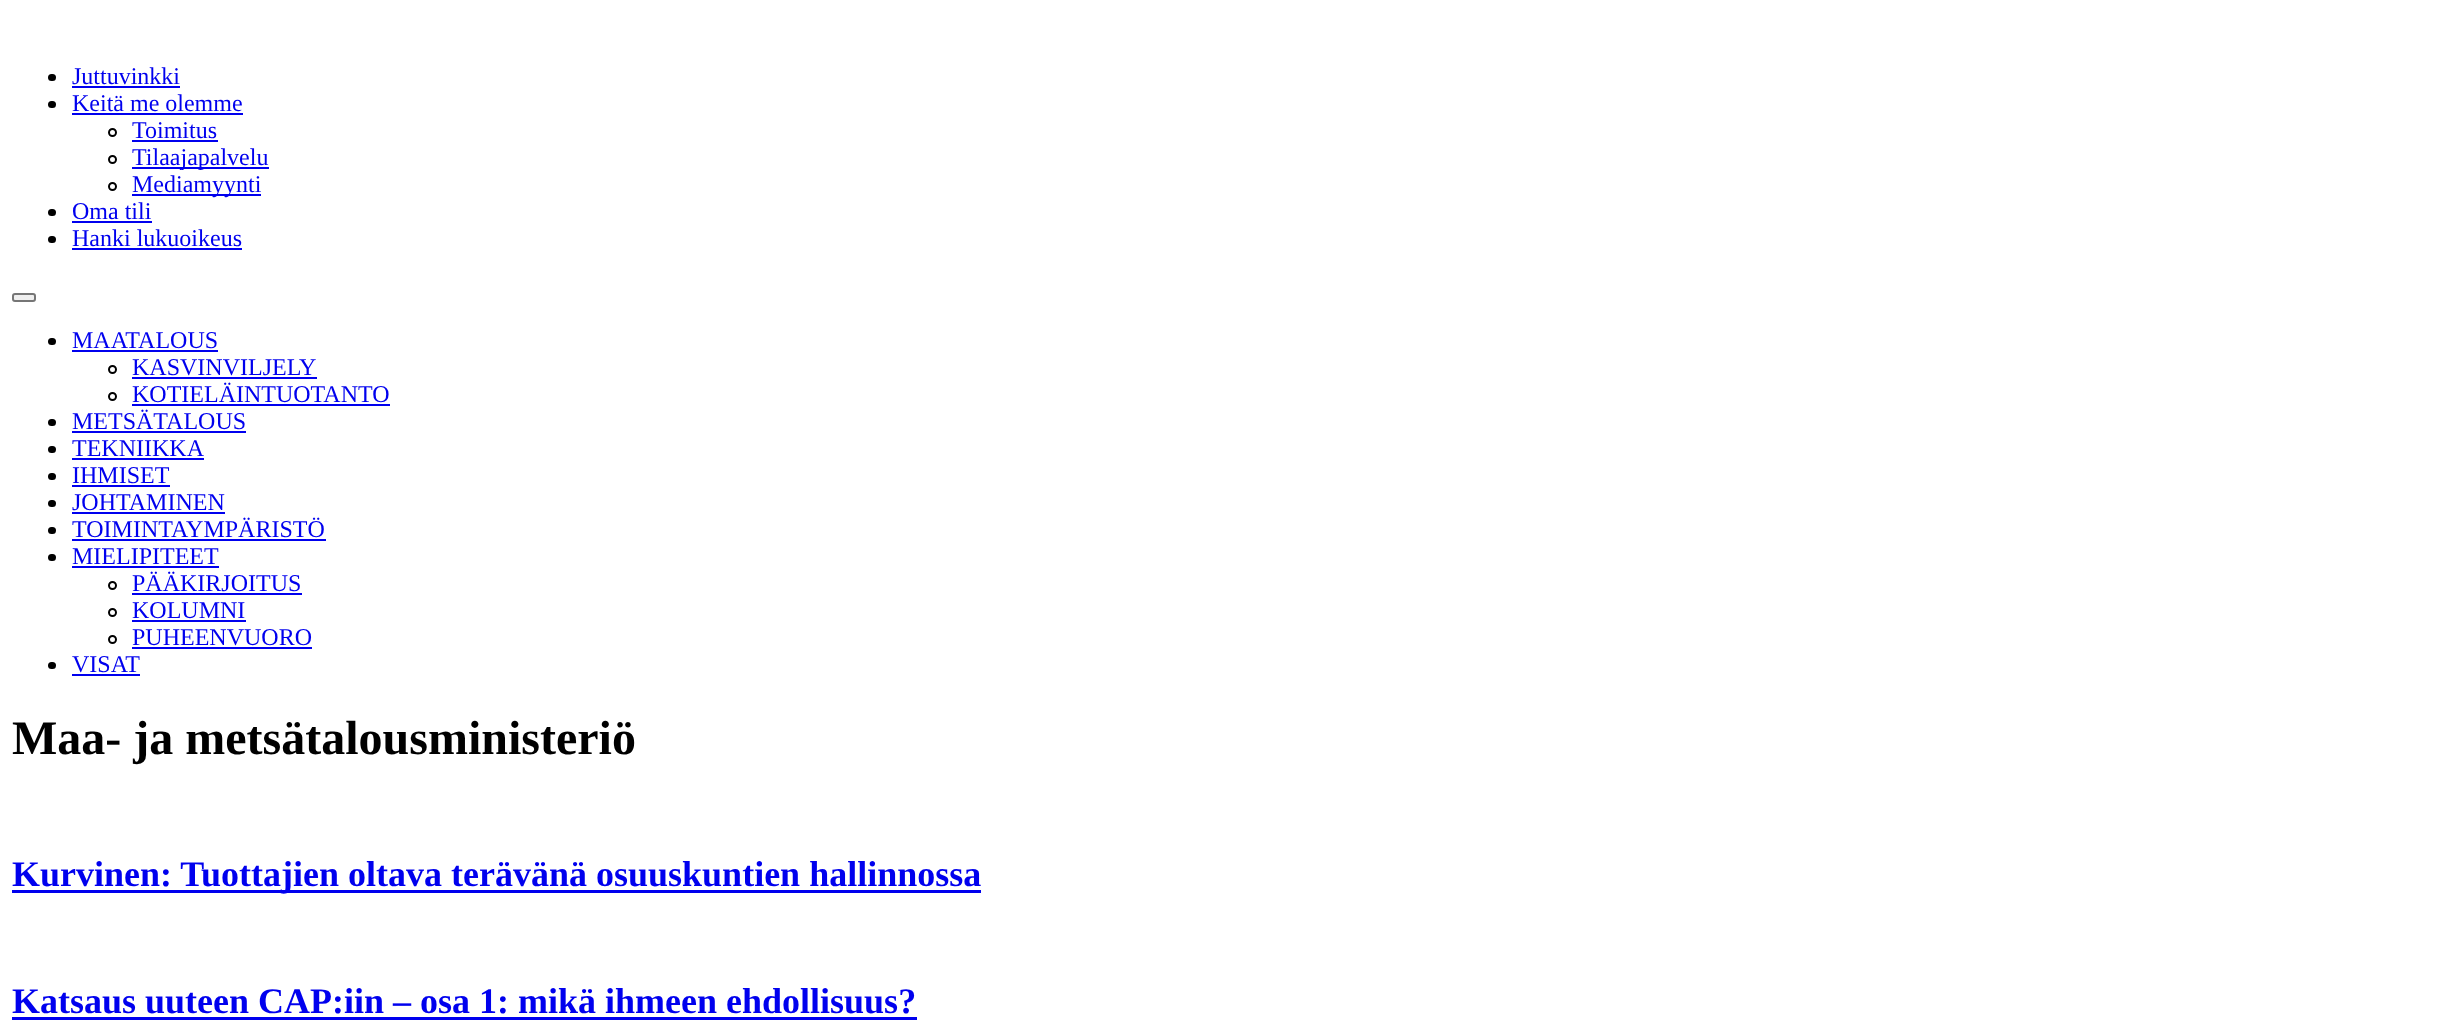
<svg xmlns="http://www.w3.org/2000/svg" width="2448" height="1033" viewBox="0 0 2448 1033">
  <rect width="100%" height="100%" fill="#ffffff"/>
  <rect x="48" y="74" width="8" height="7" rx="3.5" fill="#000000"/>
  <text x="72" y="84" font-family="Liberation Serif" font-size="24" fill="#0000ee">Juttuvinkki</text>
  <rect x="72" y="86" width="108" height="2" fill="#0000ee"/>
  <rect x="48" y="101" width="8" height="7" rx="3.5" fill="#000000"/>
  <text x="72" y="111" font-family="Liberation Serif" font-size="24" fill="#0000ee">Keitä me olemme</text>
  <rect x="72" y="113" width="171" height="2" fill="#0000ee"/>
  <circle cx="112.5" cy="132.5" r="3.5" fill="none" stroke="#000000" stroke-width="2"/>
  <text x="132" y="138" font-family="Liberation Serif" font-size="24" fill="#0000ee">Toimitus</text>
  <rect x="132" y="140" width="86" height="2" fill="#0000ee"/>
  <circle cx="112.5" cy="159.5" r="3.5" fill="none" stroke="#000000" stroke-width="2"/>
  <rect x="132" y="167" width="137" height="2" fill="#0000ee"/>
  <text x="132" y="165" font-family="Liberation Serif" font-size="24" fill="#0000ee">Tilaajapalvelu</text>
  <circle cx="112.5" cy="186.5" r="3.5" fill="none" stroke="#000000" stroke-width="2"/>
  <rect x="132" y="194" width="129" height="2" fill="#0000ee"/>
  <text x="132" y="192" font-family="Liberation Serif" font-size="24" fill="#0000ee">Mediamyynti</text>
  <rect x="48" y="209" width="8" height="7" rx="3.5" fill="#000000"/>
  <text x="72" y="219" font-family="Liberation Serif" font-size="24" fill="#0000ee">Oma tili</text>
  <rect x="72" y="221" width="80" height="2" fill="#0000ee"/>
  <rect x="48" y="236" width="8" height="7" rx="3.5" fill="#000000"/>
  <text x="72" y="246" font-family="Liberation Serif" font-size="24" fill="#0000ee">Hanki lukuoikeus</text>
  <rect x="72" y="248" width="170" height="2" fill="#0000ee"/>
  <rect x="13" y="294" width="22" height="7" rx="2" fill="#efefef" stroke="#767676" stroke-width="2"/>
  <rect x="48" y="338" width="8" height="7" rx="3.5" fill="#000000"/>
  <text x="72" y="348" font-family="Liberation Serif" font-size="24" fill="#0000ee">MAATALOUS</text>
  <rect x="72" y="350" width="146" height="2" fill="#0000ee"/>
  <circle cx="112.5" cy="369.5" r="3.5" fill="none" stroke="#000000" stroke-width="2"/>
  <text x="132" y="375" font-family="Liberation Serif" font-size="24" fill="#0000ee">KASVINVILJELY</text>
  <rect x="132" y="377" width="185" height="2" fill="#0000ee"/>
  <circle cx="112.5" cy="396.5" r="3.5" fill="none" stroke="#000000" stroke-width="2"/>
  <text x="132" y="402" font-family="Liberation Serif" font-size="24" fill="#0000ee">KOTIELÄINTUOTANTO</text>
  <rect x="132" y="404" width="258" height="2" fill="#0000ee"/>
  <rect x="48" y="419" width="8" height="7" rx="3.5" fill="#000000"/>
  <text x="72" y="429" font-family="Liberation Serif" font-size="24" fill="#0000ee">METSÄTALOUS</text>
  <rect x="72" y="431" width="174" height="2" fill="#0000ee"/>
  <rect x="48" y="446" width="8" height="7" rx="3.5" fill="#000000"/>
  <text x="72" y="456" font-family="Liberation Serif" font-size="24" fill="#0000ee">TEKNIIKKA</text>
  <rect x="72" y="458" width="132" height="2" fill="#0000ee"/>
  <rect x="48" y="473" width="8" height="7" rx="3.5" fill="#000000"/>
  <text x="72" y="483" font-family="Liberation Serif" font-size="24" fill="#0000ee">IHMISET</text>
  <rect x="72" y="485" width="98" height="2" fill="#0000ee"/>
  <rect x="48" y="500" width="8" height="7" rx="3.5" fill="#000000"/>
  <text x="72" y="510" font-family="Liberation Serif" font-size="24" fill="#0000ee">JOHTAMINEN</text>
  <rect x="72" y="512" width="153" height="2" fill="#0000ee"/>
  <rect x="48" y="527" width="8" height="7" rx="3.5" fill="#000000"/>
  <text x="72" y="537" font-family="Liberation Serif" font-size="24" fill="#0000ee">TOIMINTAYMPÄRISTÖ</text>
  <rect x="72" y="539" width="254" height="2" fill="#0000ee"/>
  <rect x="48" y="554" width="8" height="7" rx="3.5" fill="#000000"/>
  <text x="72" y="564" font-family="Liberation Serif" font-size="24" fill="#0000ee">MIELIPITEET</text>
  <rect x="72" y="566" width="147" height="2" fill="#0000ee"/>
  <circle cx="112.5" cy="585.5" r="3.5" fill="none" stroke="#000000" stroke-width="2"/>
  <text x="132" y="591" font-family="Liberation Serif" font-size="24" fill="#0000ee">PÄÄKIRJOITUS</text>
  <rect x="132" y="593" width="170" height="2" fill="#0000ee"/>
  <circle cx="112.5" cy="612.5" r="3.5" fill="none" stroke="#000000" stroke-width="2"/>
  <text x="132" y="618" font-family="Liberation Serif" font-size="24" fill="#0000ee">KOLUMNI</text>
  <rect x="132" y="620" width="114" height="2" fill="#0000ee"/>
  <circle cx="112.5" cy="639.5" r="3.5" fill="none" stroke="#000000" stroke-width="2"/>
  <text x="132" y="645" font-family="Liberation Serif" font-size="24" fill="#0000ee">PUHEENVUORO</text>
  <rect x="132" y="647" width="180" height="2" fill="#0000ee"/>
  <rect x="48" y="662" width="8" height="7" rx="3.5" fill="#000000"/>
  <text x="72" y="672" font-family="Liberation Serif" font-size="24" fill="#0000ee">VISAT</text>
  <rect x="72" y="674" width="68" height="2" fill="#0000ee"/>
  <text x="12" y="754" font-family="Liberation Serif" font-size="48" font-weight="bold" fill="#000000">Maa- ja metsätalousministeriö</text>
  <rect x="12" y="890" width="969" height="3" fill="#0000ee"/>
  <text x="12" y="886" font-family="Liberation Serif" font-size="36" font-weight="bold" fill="#0000ee">Kurvinen: Tuottajien oltava terävänä osuuskuntien hallinnossa</text>
  <text x="12" y="1013" font-family="Liberation Serif" font-size="36" font-weight="bold" fill="#0000ee">Katsaus uuteen CAP:iin – osa 1: mikä ihmeen ehdollisuus?</text>
  <rect x="12" y="1017" width="905" height="3" fill="#0000ee"/>
</svg>
